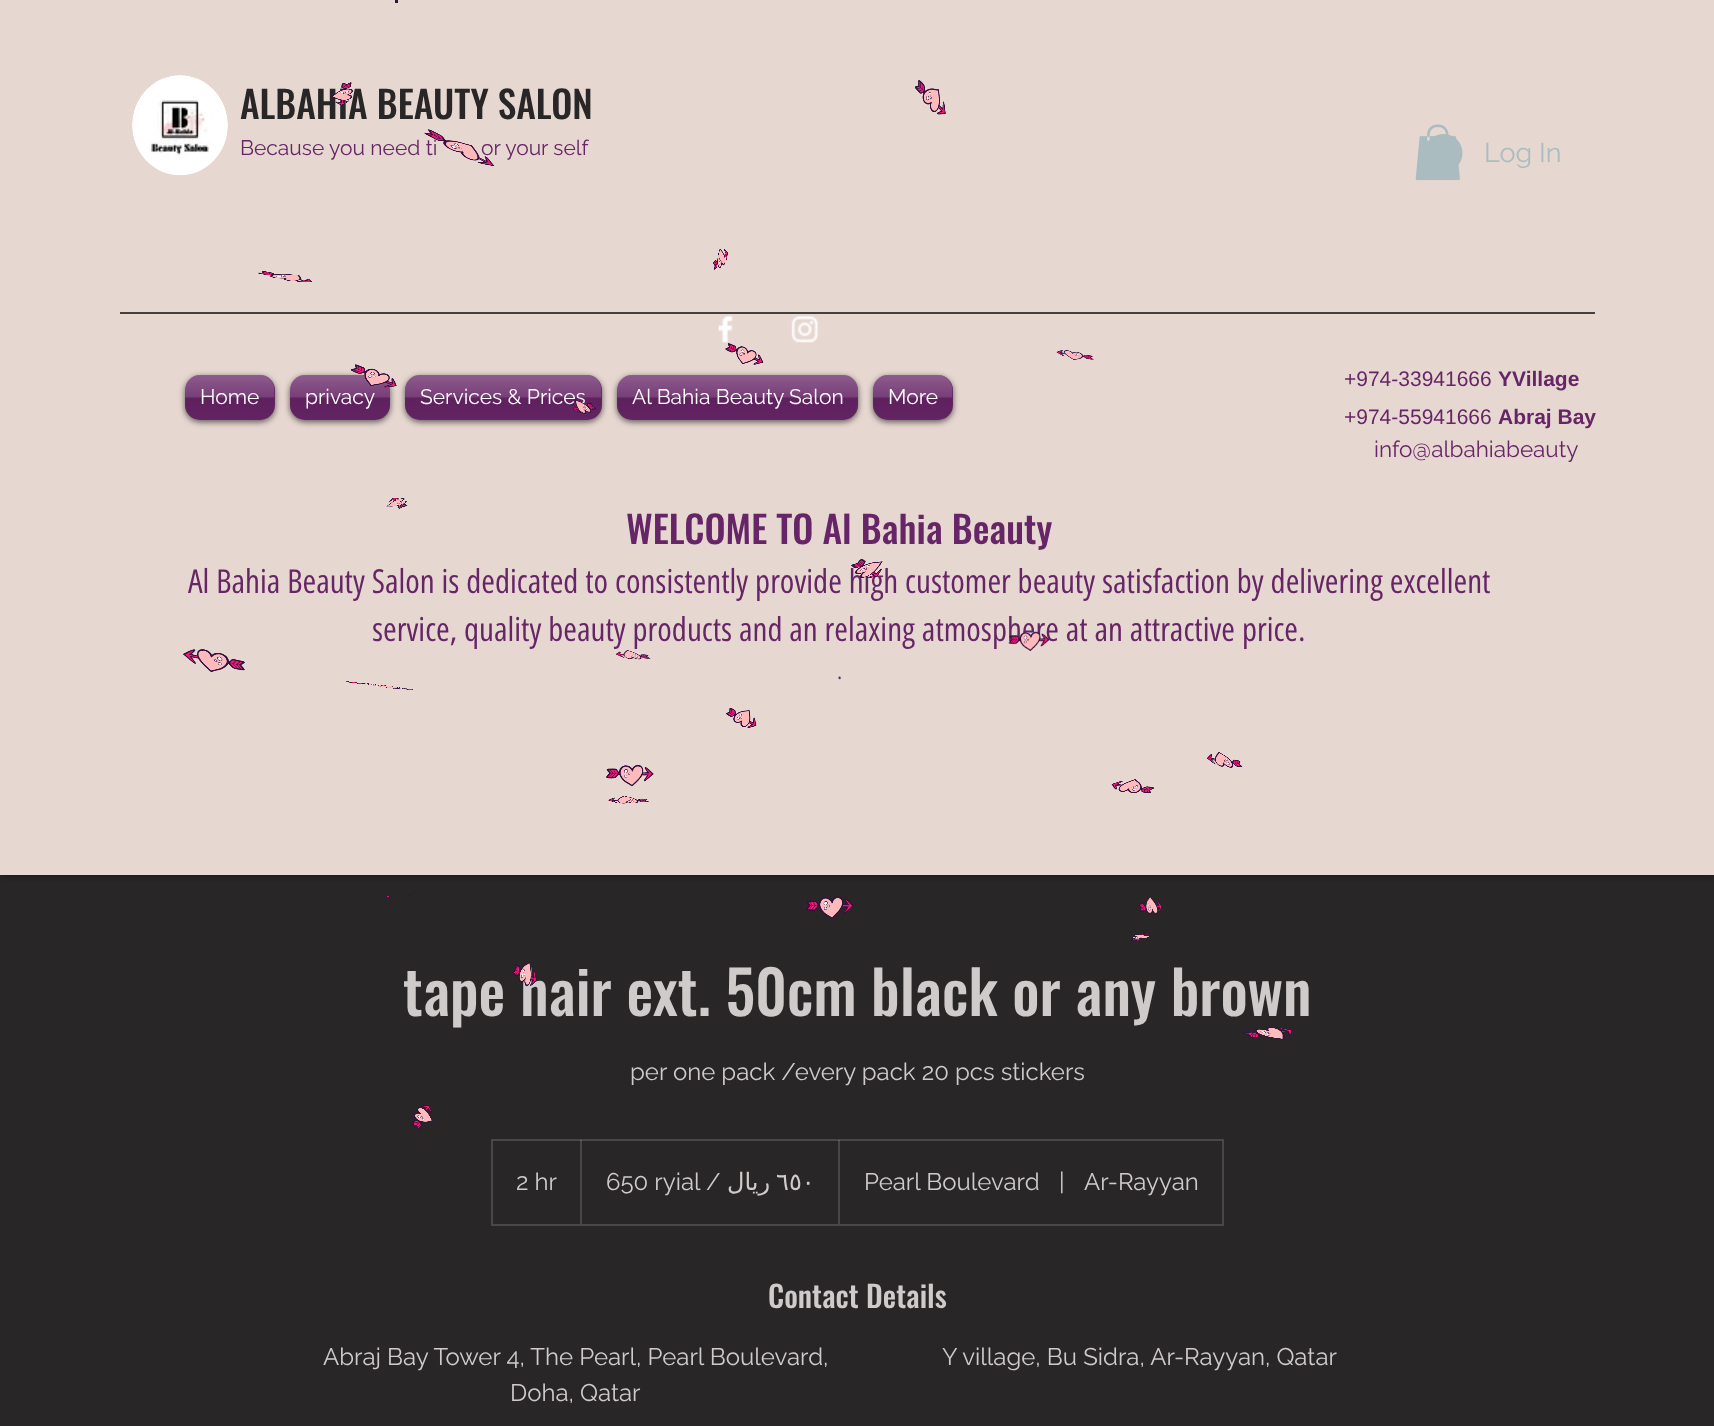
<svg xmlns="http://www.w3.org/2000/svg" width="1714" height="1426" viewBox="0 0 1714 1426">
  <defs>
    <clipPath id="clip1"><path d="M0 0H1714V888H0ZM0 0H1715V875H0Z" clip-rule="evenodd"/></clipPath>
    <filter id="blur1" x="-50%" y="-200%" width="200%" height="500%"><feGaussianBlur stdDeviation="4"/></filter>
    <filter id="blur2" x="-50%" y="-200%" width="200%" height="500%"><feGaussianBlur stdDeviation="3"/></filter>
    <clipPath id="clip2"><rect x="492" y="1140" width="731" height="84"/></clipPath>
  </defs>
  <rect width="100%" height="100%" fill="#ffe4d9"/>
  <rect x="0" y="875" width="1714" height="551" fill="#282626"/>
  <g clip-path="url(#clip1)">
    <rect x="0" y="0" width="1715" height="875" fill="#000000" fill-opacity="0.5" filter="url(#blur1)"/>
  </g>
  <rect x="0" y="0" width="1714" height="875" fill="#cfcbcb" fill-opacity="0.51"/>
  <rect x="395" y="0" width="3" height="3" fill="#361041"/>
  <text x="240" y="119" font-family="Oswald" font-size="37.5" font-weight="500" fill="#282626">ALBAHIA BEAUTY SALON</text>
  <image x="331" y="82" width="22" height="24" href="img1.png"/>
  <image x="915" y="80" width="31" height="35" href="img2.png"/>
  <text x="240" y="155" font-family="Raleway" font-size="21" fill="#662566">Because you need ti</text>
  <text x="481" y="155" font-family="Raleway" font-size="21" fill="#662566">or your self</text>
  <image x="424" y="129" width="71" height="38" href="img3.png"/>
  <image x="713" y="249" width="15" height="21" href="img4.png"/>
  <image x="257" y="271" width="56" height="11" href="img5.png"/>
  <image x="725" y="343" width="39" height="22" href="img6.png"/>
  <image x="1056" y="350" width="38" height="10" href="img7.png"/>
  <rect x="290" y="377" width="100" height="45" rx="15" fill="#000000" fill-opacity="0.6" filter="url(#blur2)"/>
  <rect x="290" y="375" width="100" height="45" rx="15" fill="#662566"/>
  <image x="290" y="375" width="100" height="44" href="img34.png"/>
  <rect x="405" y="377" width="197" height="45" rx="15" fill="#000000" fill-opacity="0.6" filter="url(#blur2)"/>
  <image x="350" y="364" width="47" height="24" href="img8.png"/>
  <rect x="405" y="375" width="197" height="45" rx="15" fill="#662566"/>
  <image x="405" y="375" width="197" height="43" href="img35.png"/>
  <text x="420" y="404" font-family="Raleway" font-size="21" fill="#ffffff">Services &amp; Prices</text>
  <image x="572" y="399" width="24" height="15" href="img9.png"/>
  <image x="386" y="497" width="22" height="12" href="img10.png"/>
  <text x="188" y="593" font-family="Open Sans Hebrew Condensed" font-size="33" fill="#662566">Al Bahia Beauty Salon is dedicated to consistently provide high customer beauty satisfaction by delivering excellent</text>
  <image x="851" y="559" width="32" height="20" href="img11.png"/>
  <text x="372" y="641" font-family="Open Sans Hebrew Condensed" font-size="33" fill="#662566">service, quality beauty products and an relaxing atmosphere at an attractive price.</text>
  <image x="1008" y="631" width="42" height="20" href="img12.png"/>
  <image x="183" y="649" width="62" height="23" href="img13.png"/>
  <image x="616" y="650" width="35" height="10" href="img14.png"/>
  <image x="346" y="681" width="67" height="9" href="img15.png"/>
  <image x="726" y="708" width="31" height="20" href="img16.png"/>
  <image x="1207" y="752" width="36" height="16" href="img17.png"/>
  <image x="606" y="764" width="48" height="23" href="img18.png"/>
  <image x="1111" y="779" width="43" height="15" href="img19.png"/>
  <image x="608" y="796" width="41" height="8" href="img20.png"/>
  <image x="386" y="895" width="25" height="2" href="img21.png"/>
  <image x="806" y="896" width="48" height="23" href="img22.png"/>
  <image x="1139" y="896" width="23" height="19" href="img23.png"/>
  <image x="1131" y="933" width="19" height="8" href="img24.png"/>
  <text x="403" y="1016" font-family="Oswald" font-size="60" font-weight="500" fill="#cfcbcb">tape hair ext. 50cm black or any brown</text>
  <image x="513" y="962" width="24" height="25" href="img25.png"/>
  <image x="1243" y="1027" width="50" height="13" href="img26.png"/>
  <image x="412" y="1105" width="21" height="24" href="img27.png"/>
  <image x="132" y="75" width="96" height="100" href="img28.png"/>
  <image x="1428" y="134" width="35" height="32" href="img30.png"/>
  <image x="1415" y="124" width="45" height="57" href="img29.png"/>
  <text x="1484" y="162" font-family="Raleway" font-size="27" fill="#aabcbf">Log In</text>
  <rect x="120" y="312" width="1475" height="2" fill="#454140"/>
  <image x="718" y="315" width="15" height="28" href="img31.png"/>
  <image x="791" y="316" width="27" height="27" href="img32.png"/>
  <rect x="185" y="377" width="90" height="45" rx="15" fill="#000000" fill-opacity="0.6" filter="url(#blur2)"/>
  <rect x="185" y="375" width="90" height="45" rx="15" fill="#662566"/>
  <image x="185" y="375" width="90" height="44" href="img33.png"/>
  <text x="200" y="404" font-family="Raleway" font-size="21" fill="#ffffff">Home</text>
  <text x="305" y="404" font-family="Raleway" font-size="21" fill="#ffffff">privacy</text>
  <rect x="617" y="377" width="241" height="45" rx="15" fill="#000000" fill-opacity="0.6" filter="url(#blur2)"/>
  <rect x="617" y="375" width="241" height="45" rx="15" fill="#662566"/>
  <image x="617" y="375" width="241" height="44" href="img36.png"/>
  <text x="632" y="404" font-family="Raleway" font-size="21" fill="#ffffff">Al Bahia Beauty Salon</text>
  <rect x="873" y="377" width="80" height="45" rx="15" fill="#000000" fill-opacity="0.6" filter="url(#blur2)"/>
  <rect x="873" y="375" width="80" height="45" rx="15" fill="#662566"/>
  <image x="873" y="375" width="80" height="43" href="img37.png"/>
  <text x="888" y="404" font-family="Raleway" font-size="21" fill="#ffffff">More</text>
  <text x="1344" y="386" font-family="Liberation Sans" font-size="21" fill="#662566">+974-33941666</text>
  <text x="1498" y="386" font-family="Liberation Sans" font-size="21" font-weight="bold" fill="#662566">YVillage</text>
  <text x="1344" y="424" font-family="Liberation Sans" font-size="21" fill="#662566">+974-55941666</text>
  <text x="1498" y="424" font-family="Liberation Sans" font-size="21" font-weight="bold" fill="#662566">Abraj Bay</text>
  <text x="1374" y="457" font-family="Raleway" font-size="22.5" fill="#662566">info@albahiabeauty</text>
  <text x="626" y="544" font-family="Oswald" font-size="37.5" font-weight="500" fill="#662566">WELCOME TO Al Bahia Beauty</text>
  <text x="837" y="679" font-family="Open Sans Hebrew Condensed" font-size="22.5" fill="#662566">.</text>
  <text x="630" y="1080" font-family="Raleway" font-size="24" fill="#cfcbcb">per one pack /every pack 20 pcs stickers</text>
  <rect x="492" y="1140" width="731" height="85" fill="none" stroke="#494747" stroke-width="2"/>
  <text x="516" y="1190" font-family="Raleway" font-size="24" fill="#cfcbcb">2 hr</text>
  <g clip-path="url(#clip2)">
    <path d="M580 1224V1138L582 1140V1224Z" fill="#cfcbcb" fill-opacity="0.2"/>
  </g>
  <text x="606" y="1190" font-family="Raleway" font-size="24" fill="#cfcbcb">650 ryial /</text>
  <text x="770" y="1190" font-family="DejaVu Sans" font-size="24" direction="rtl" fill="#cfcbcb">ريال</text>
  <text x="776" y="1190" font-family="DejaVu Sans" font-size="24" fill="#cfcbcb">٦٥٠</text>
  <g clip-path="url(#clip2)">
    <path d="M838 1224V1138L840 1140V1224Z" fill="#cfcbcb" fill-opacity="0.2"/>
  </g>
  <text x="864" y="1190" font-family="Raleway" font-size="24" fill="#cfcbcb">Pearl Boulevard</text>
  <text x="1059" y="1190" font-family="Raleway" font-size="24" fill="#cfcbcb">|</text>
  <text x="1084" y="1190" font-family="Raleway" font-size="24" fill="#cfcbcb">Ar-Rayyan</text>
  <text x="768" y="1308" font-family="Oswald" font-size="30" font-weight="500" fill="#cfcbcb">Contact Details</text>
  <text x="323" y="1365" font-family="Raleway" font-size="24" fill="#cfcbcb">Abraj Bay Tower 4, The Pearl, Pearl Boulevard,</text>
  <text x="510" y="1401" font-family="Raleway" font-size="24" fill="#cfcbcb">Doha, Qatar</text>
  <text x="942" y="1365" font-family="Raleway" font-size="24" fill="#cfcbcb">Y village, Bu Sidra, Ar-Rayyan, Qatar</text>
</svg>
